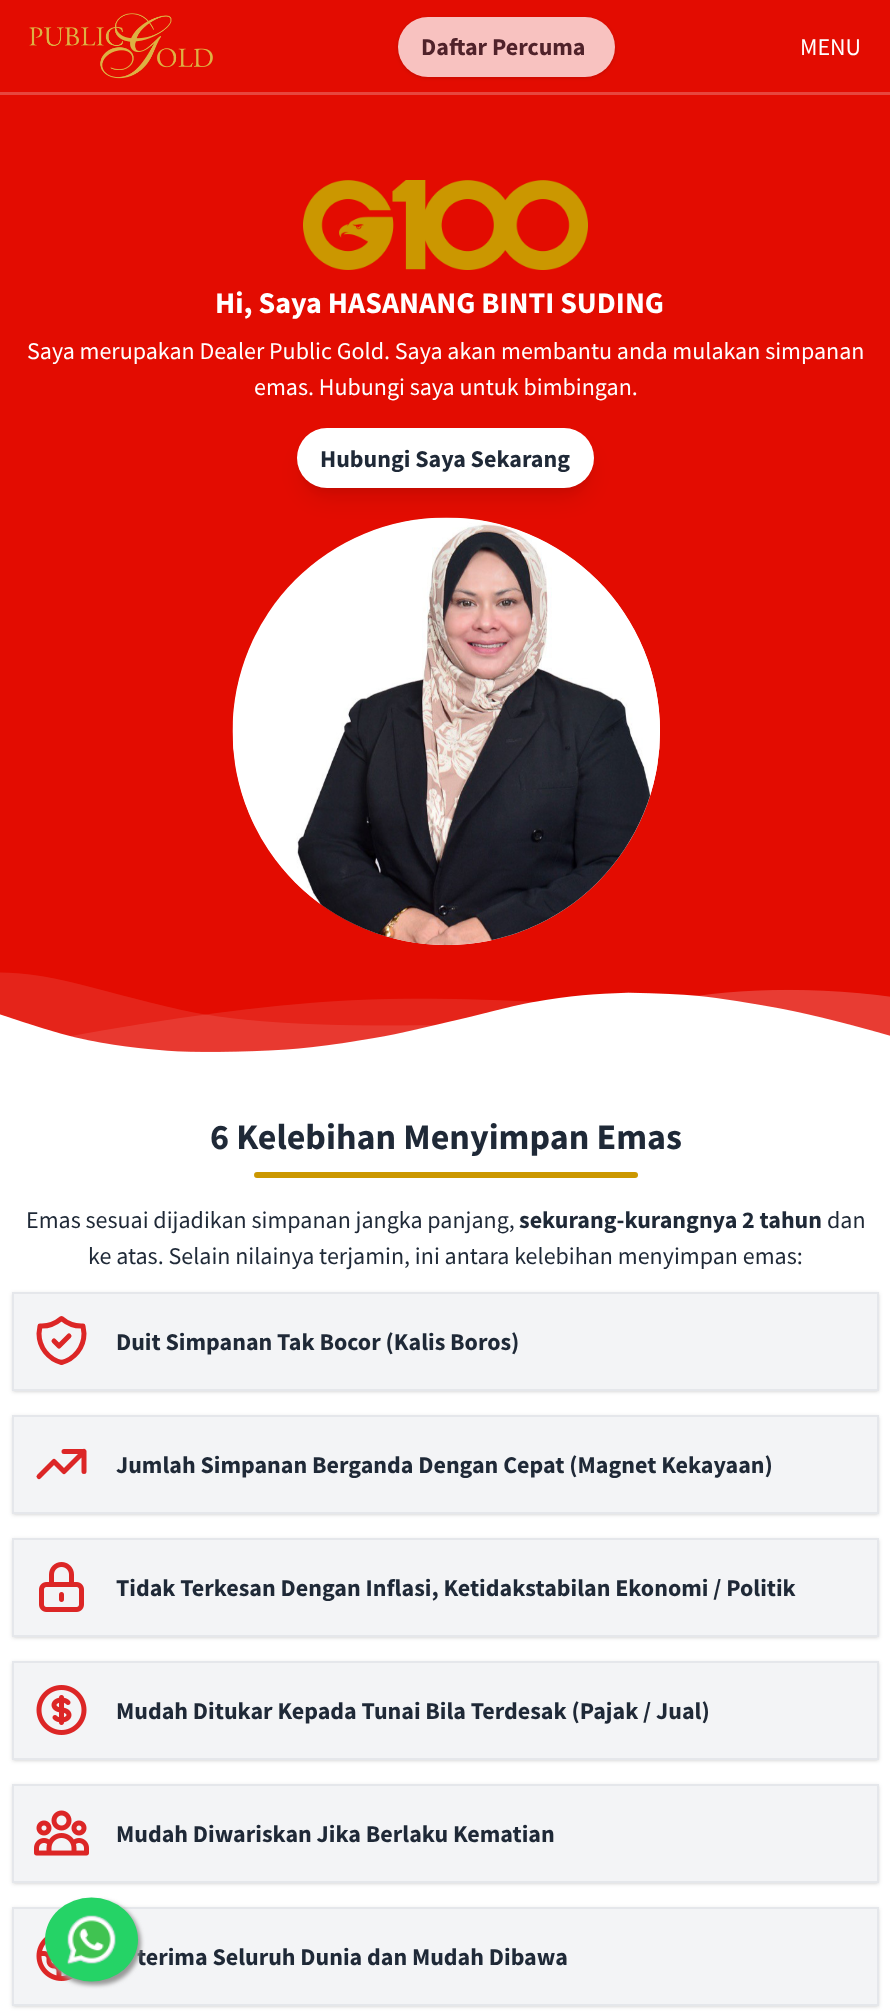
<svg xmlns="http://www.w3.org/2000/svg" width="890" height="2011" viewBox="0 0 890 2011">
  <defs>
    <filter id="blur1" x="-50%" y="-200%" width="200%" height="500%"><feGaussianBlur stdDeviation="1.5"/></filter>
    <filter id="blur2" x="-50%" y="-200%" width="200%" height="500%"><feGaussianBlur stdDeviation="2"/></filter>
    <filter id="blur3" x="-50%" y="-200%" width="200%" height="500%"><feGaussianBlur stdDeviation="4.5"/></filter>
    <filter id="blur4" x="-50%" y="-200%" width="200%" height="500%"><feGaussianBlur stdDeviation="11"/></filter>
  </defs>
  <rect width="100%" height="100%" fill="#ffffff"/>
  <rect x="0" y="0" width="890" height="1052" fill="#e30c01"/>
  <image x="29" y="13" width="184" height="66" href="img1.png"/>
  <rect x="399" y="20" width="215" height="57" rx="28.5" fill="#390300" fill-opacity="0.1" filter="url(#blur1)"/>
  <rect x="398" y="18" width="217" height="60" rx="30" fill="#390300" fill-opacity="0.1" filter="url(#blur2)"/>
  <rect x="398" y="17" width="217" height="60" rx="30" fill="#f8c2c0"/>
  <text x="421" y="55" font-family="Source Sans Pro" font-size="24" font-weight="bold" fill="#50222a">Daftar Percuma</text>
  <text x="800" y="55" font-family="Source Sans Pro" font-size="24" fill="#ffffff">MENU</text>
  <rect x="0" y="92" width="890" height="3" fill="#e7463e"/>
  <image x="303" y="180" width="285" height="90" href="img2.png"/>
  <text x="215" y="313" font-family="Source Sans Pro" font-size="30" font-weight="bold" fill="#ffffff">Hi, Saya HASANANG BINTI SUDING</text>
  <text x="27" y="359" font-family="Source Sans Pro" font-size="24" fill="#ffffff">Saya merupakan Dealer Public Gold. Saya akan membantu anda mulakan simpanan</text>
  <text x="254" y="395" font-family="Source Sans Pro" font-size="24" fill="#ffffff">emas. Hubungi saya untuk bimbingan.</text>
  <rect x="303" y="440" width="285" height="48" rx="24" fill="#000000" fill-opacity="0.1" filter="url(#blur3)"/>
  <circle cx="446.5" cy="731.5" r="213.5" fill="#ffffff"/>
  <image x="232" y="517" width="428" height="428" href="img3.png"/>
  <rect x="302" y="447" width="288" height="51" rx="25.5" fill="#000000" fill-opacity="0.1" filter="url(#blur4)"/>
  <rect x="297" y="428" width="297" height="60" rx="30" fill="#ffffff"/>
  <text x="320" y="467" font-family="Source Sans Pro" font-size="24" font-weight="bold" fill="#1f2937">Hubungi Saya Sekarang</text>
  <image x="0" y="972" width="890" height="83" href="img4.png"/>
  <text x="210" y="1149" font-family="Source Sans Pro" font-size="36" font-weight="bold" fill="#1f2937">6 Kelebihan Menyimpan Emas</text>
  <rect x="254" y="1172" width="384" height="6" rx="3" fill="#cb9700"/>
  <text x="26" y="1228" font-family="Source Sans Pro" font-size="24" fill="#1f2937">Emas sesuai dijadikan simpanan jangka panjang,</text>
  <text x="519" y="1228" font-family="Source Sans Pro" font-size="24" font-weight="bold" fill="#1f2937">sekurang-kurangnya 2 tahun</text>
  <text x="827" y="1228" font-family="Source Sans Pro" font-size="24" fill="#1f2937">dan</text>
  <text x="88" y="1264" font-family="Source Sans Pro" font-size="24" fill="#1f2937">ke atas. Selain nilainya terjamin, ini antara kelebihan menyimpan emas:</text>
  <rect x="14" y="1295" width="864" height="96" fill="#000000" fill-opacity="0.1" filter="url(#blur1)"/>
  <rect x="12" y="1293" width="867" height="99" fill="#000000" fill-opacity="0.1" filter="url(#blur2)"/>
  <rect x="13" y="1293" width="865" height="97" fill="#f3f4f6" stroke="#e5e7eb" stroke-width="2"/>
  <path d="M54 1341L59 1346L69 1336M83 1326C75 1326.5 67.5 1323.5 61.5 1318.5C55.5 1323.5 48 1326.5 40 1326L39 1333.5C39 1347.5 48.5 1359 61.5 1362.5C74.5 1359 84 1347.5 84 1333.5Z" fill="none" stroke="#dc2626" stroke-width="5" stroke-linecap="round" stroke-linejoin="round"/>
  <text x="116" y="1350" font-family="Source Sans Pro" font-size="24" font-weight="bold" fill="#1f2937">Duit Simpanan Tak Bocor (Kalis Boros)</text>
  <rect x="14" y="1418" width="864" height="96" fill="#000000" fill-opacity="0.1" filter="url(#blur1)"/>
  <rect x="12" y="1416" width="867" height="99" fill="#000000" fill-opacity="0.1" filter="url(#blur2)"/>
  <rect x="13" y="1416" width="865" height="97" fill="#f3f4f6" stroke="#e5e7eb" stroke-width="2"/>
  <path d="M64 1451.5H84M84 1451.5V1471.5M84 1451.5L64 1471.5L54 1461.5L39 1476.5" fill="none" stroke="#dc2626" stroke-width="5" stroke-linecap="round" stroke-linejoin="round"/>
  <text x="116" y="1473" font-family="Source Sans Pro" font-size="24" font-weight="bold" fill="#1f2937">Jumlah Simpanan Berganda Dengan Cepat (Magnet Kekayaan)</text>
  <rect x="14" y="1541" width="864" height="96" fill="#000000" fill-opacity="0.1" filter="url(#blur1)"/>
  <rect x="12" y="1539" width="867" height="99" fill="#000000" fill-opacity="0.1" filter="url(#blur2)"/>
  <rect x="13" y="1539" width="865" height="97" fill="#f3f4f6" stroke="#e5e7eb" stroke-width="2"/>
  <image x="39" y="1562" width="45" height="50" href="img5.png"/>
  <text x="116" y="1596" font-family="Source Sans Pro" font-size="24" font-weight="bold" fill="#1f2937">Tidak Terkesan Dengan Inflasi, Ketidakstabilan Ekonomi / Politik</text>
  <rect x="14" y="1664" width="864" height="96" fill="#000000" fill-opacity="0.1" filter="url(#blur1)"/>
  <rect x="12" y="1662" width="867" height="99" fill="#000000" fill-opacity="0.1" filter="url(#blur2)"/>
  <rect x="13" y="1662" width="865" height="97" fill="#f3f4f6" stroke="#e5e7eb" stroke-width="2"/>
  <image x="36" y="1685" width="51" height="50" href="img6.png"/>
  <text x="116" y="1719" font-family="Source Sans Pro" font-size="24" font-weight="bold" fill="#1f2937">Mudah Ditukar Kepada Tunai Bila Terdesak (Pajak / Jual)</text>
  <rect x="14" y="1787" width="864" height="96" fill="#000000" fill-opacity="0.1" filter="url(#blur1)"/>
  <rect x="12" y="1785" width="867" height="99" fill="#000000" fill-opacity="0.1" filter="url(#blur2)"/>
  <rect x="13" y="1785" width="865" height="97" fill="#f3f4f6" stroke="#e5e7eb" stroke-width="2"/>
  <image x="34" y="1810" width="55" height="46" href="img7.png"/>
  <text x="116" y="1842" font-family="Source Sans Pro" font-size="24" font-weight="bold" fill="#1f2937">Mudah Diwariskan Jika Berlaku Kematian</text>
  <rect x="14" y="1910" width="864" height="96" fill="#000000" fill-opacity="0.1" filter="url(#blur1)"/>
  <rect x="12" y="1908" width="867" height="99" fill="#000000" fill-opacity="0.1" filter="url(#blur2)"/>
  <rect x="13" y="1908" width="865" height="97" fill="#f3f4f6" stroke="#e5e7eb" stroke-width="2"/>
  <image x="36" y="1936" width="38" height="45" href="img8.png"/>
  <text x="137" y="1965" font-family="Source Sans Pro" font-size="24" font-weight="bold" fill="#1f2937">terima Seluruh Dunia dan Mudah Dibawa</text>
  <rect x="48" y="1901" width="93" height="84" rx="42" fill="#999999" filter="url(#blur2)"/>
  <ellipse cx="91.5" cy="1939.5" rx="46.5" ry="42" fill="#25d366"/>
  <image x="67" y="1915" width="49" height="50" href="img9.png"/>
</svg>
